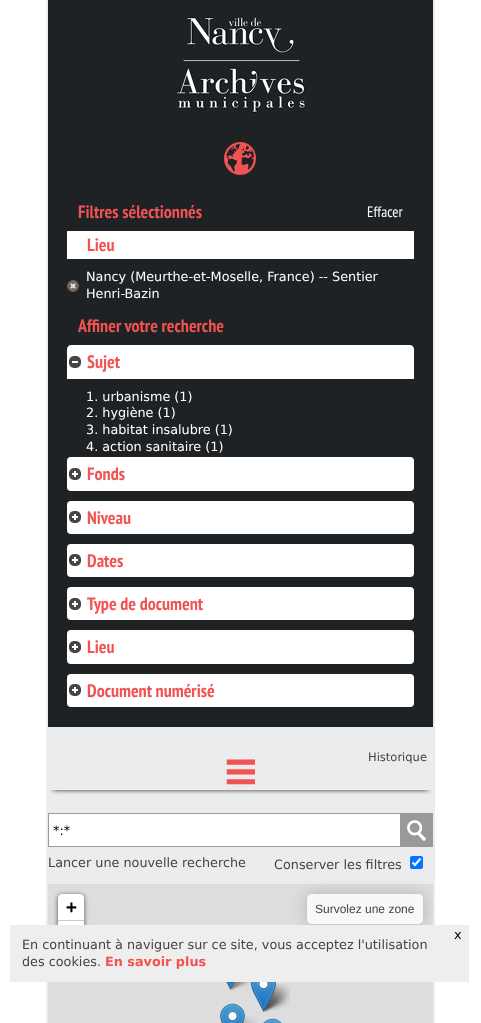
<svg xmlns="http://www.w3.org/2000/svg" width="481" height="1023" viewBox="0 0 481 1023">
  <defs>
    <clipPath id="clip1"><rect x="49" y="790" width="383" height="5"/></clipPath>
    <filter id="blur1" x="-50%" y="-200%" width="200%" height="500%"><feGaussianBlur stdDeviation="2.5"/></filter>
    <clipPath id="clip2"><path d="M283 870H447V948H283ZM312 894H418C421 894 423 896 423 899V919C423 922 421 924 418 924H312C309 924 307 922 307 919V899C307 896 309 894 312 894Z" clip-rule="evenodd"/></clipPath>
    <filter id="blur2" x="-50%" y="-200%" width="200%" height="500%"><feGaussianBlur stdDeviation="7.5"/></filter>
  </defs>
  <rect width="100%" height="100%" fill="#ffffff"/>
  <rect x="46" y="0" width="389" height="1023" fill="#ebeced"/>
  <rect x="48" y="0" width="385" height="727" fill="#1f2225"/>
  <image x="176" y="16" width="130" height="97" href="img1.png"/>
  <image x="224" y="142" width="32" height="33" href="img2.png"/>
  <text x="78" y="218" font-family="PT Sans Narrow" font-size="18" font-weight="bold" fill="#f15252">Filtres sélectionnés</text>
  <text x="367" y="217" font-family="PT Sans Narrow" font-size="15" fill="#ffffff">Effacer</text>
  <rect x="67" y="231" width="347" height="28" fill="#ffffff"/>
  <text x="87" y="251" font-family="PT Sans Narrow" font-size="18" font-weight="bold" fill="#f15252">Lieu</text>
  <image x="67" y="280" width="12" height="12" href="img3.png"/>
  <text x="86" y="281" font-family="DejaVu Sans" font-size="12.8" fill="#ffffff">Nancy (Meurthe-et-Moselle, France) -- Sentier</text>
  <text x="86" y="298" font-family="DejaVu Sans" font-size="12.8" fill="#ffffff">Henri-Bazin</text>
  <text x="78" y="332" font-family="PT Sans Narrow" font-size="18" font-weight="bold" fill="#f15252">Affiner votre recherche</text>
  <path d="M71 345H410C412 345 414 347 414 349V379H67V349C67 347 69 345 71 345Z" fill="#ffffff"/>
  <image x="69" y="356" width="12" height="12" href="img4.png"/>
  <text x="87" y="368" font-family="PT Sans Narrow" font-size="18" font-weight="bold" fill="#f15252">Sujet</text>
  <text x="86" y="401" font-family="DejaVu Sans" font-size="12.8" fill="#ffffff">1. urbanisme (1)</text>
  <text x="86" y="417" font-family="DejaVu Sans" font-size="12.8" fill="#ffffff">2. hygiène (1)</text>
  <text x="86" y="434" font-family="DejaVu Sans" font-size="12.8" fill="#ffffff">3. habitat insalubre (1)</text>
  <text x="86" y="451" font-family="DejaVu Sans" font-size="12.8" fill="#ffffff">4. action sanitaire (1)</text>
  <rect x="67" y="457" width="347" height="34" rx="4" fill="#ffffff"/>
  <image x="69" y="468" width="12" height="12" href="img5.png"/>
  <text x="87" y="480" font-family="PT Sans Narrow" font-size="18" font-weight="bold" fill="#f15252">Fonds</text>
  <rect x="67" y="501" width="347" height="33" rx="4" fill="#ffffff"/>
  <image x="69" y="511" width="12" height="12" href="img5.png"/>
  <text x="87" y="524" font-family="PT Sans Narrow" font-size="18" font-weight="bold" fill="#f15252">Niveau</text>
  <rect x="67" y="544" width="347" height="33" rx="4" fill="#ffffff"/>
  <image x="69" y="554" width="12" height="12" href="img5.png"/>
  <text x="87" y="567" font-family="PT Sans Narrow" font-size="18" font-weight="bold" fill="#f15252">Dates</text>
  <rect x="67" y="587" width="347" height="33" rx="4" fill="#ffffff"/>
  <image x="69" y="598" width="12" height="12" href="img5.png"/>
  <text x="87" y="610" font-family="PT Sans Narrow" font-size="18" font-weight="bold" fill="#f15252">Type de document</text>
  <rect x="67" y="630" width="347" height="34" rx="4" fill="#ffffff"/>
  <image x="69" y="641" width="12" height="12" href="img5.png"/>
  <text x="87" y="653" font-family="PT Sans Narrow" font-size="18" font-weight="bold" fill="#f15252">Lieu</text>
  <rect x="67" y="674" width="347" height="33" rx="4" fill="#ffffff"/>
  <image x="69" y="684" width="12" height="12" href="img5.png"/>
  <text x="87" y="697" font-family="PT Sans Narrow" font-size="18" font-weight="bold" fill="#f15252">Document numérisé</text>
  <g clip-path="url(#clip1)">
    <rect x="53" y="762" width="375" height="28" fill="#333333" filter="url(#blur1)"/>
  </g>
  <rect x="48" y="789" width="385" height="1" fill="#eeeeee"/>
  <text x="222" y="786" font-family="DejaVu Sans" font-size="45" font-weight="bold" fill="#f15252">≡</text>
  <text x="368" y="761" font-family="DejaVu Sans" font-size="11.5" fill="#4a4041">Historique</text>
  <rect x="48.5" y="813.5" width="384" height="33" fill="none" stroke="#999999"/>
  <rect x="49" y="814" width="351" height="32" fill="#ffffff"/>
  <text x="53" y="835" font-family="DejaVu Sans" font-size="12.8" fill="#000000">*:*</text>
  <rect x="400" y="814" width="32" height="32" fill="#999999"/>
  <image x="407" y="820" width="19" height="21" href="img6.png"/>
  <text x="274" y="869" font-family="DejaVu Sans" font-size="12.8" fill="#4a4041">Conserver les filtres</text>
  <rect x="410" y="856" width="13" height="13" rx="2" fill="#0075ff"/>
  <path d="M412.5 862.5L415 865L420.5 858.5" fill="none" stroke="#ffffff" stroke-width="2.1"/>
  <text x="48" y="867" font-family="DejaVu Sans" font-size="12.8" fill="#4a4041">Lancer une nouvelle recherche</text>
  <rect x="48" y="884" width="385" height="139" fill="#dddddd"/>
  <rect x="58" y="895" width="26" height="80" rx="4" fill="#000000" fill-opacity="0.65" filter="url(#blur1)"/>
  <path d="M62 894H80C82 894 84 896 84 898V921H58V898C58 896 60 894 62 894Z" fill="#ffffff"/>
  <rect x="58" y="920" width="26" height="1" fill="#cccccc"/>
  <text x="66" y="913" font-family="DejaVu Sans Mono" font-size="18" font-weight="bold" fill="#000000">+</text>
  <rect x="58" y="921" width="26" height="4" fill="#ffffff"/>
  <g clip-path="url(#clip2)">
    <rect x="307" y="894" width="116" height="30" rx="5" fill="#000000" fill-opacity="0.2" filter="url(#blur2)"/>
  </g>
  <rect x="307" y="894" width="116" height="30" rx="5" fill="#ffffff" fill-opacity="0.8"/>
  <text x="315" y="913" font-family="Liberation Sans" font-size="12" fill="#4a4041">Survolez une zone</text>
  <image x="226" y="982" width="2" height="1" href="img13.png"/>
  <image x="226" y="982" width="1" height="1" href="img7.png"/>
  <image x="228" y="982" width="24" height="8" href="img14.png"/>
  <image x="226" y="982" width="9" height="8" href="img8.png"/>
  <image x="261" y="984" width="29" height="28" href="img16.png"/>
  <image x="261" y="983" width="29" height="28" href="img15.png"/>
  <image x="251" y="982" width="25" height="28" href="img9.png"/>
  <image x="242" y="1016" width="16" height="7" href="img17.png"/>
  <image x="220" y="1003" width="25" height="20" href="img10.png"/>
  <image x="251" y="982" width="25" height="30" href="img11.png"/>
  <image x="263" y="1018" width="19" height="5" href="img12.png"/>
  <rect x="10" y="925" width="459" height="57" fill="#eeeeee"/>
  <text x="454" y="939" font-family="DejaVu Sans" font-size="12.8" fill="#000000">x</text>
  <text x="22" y="949" font-family="DejaVu Sans" font-size="12.8" fill="#4a4041">En continuant à naviguer sur ce site, vous acceptez l'utilisation</text>
  <text x="22" y="966" font-family="DejaVu Sans" font-size="12.8" fill="#4a4041">des cookies.</text>
  <text x="105" y="966" font-family="DejaVu Sans" font-size="12.8" font-weight="bold" fill="#f15252">En savoir plus</text>
</svg>
